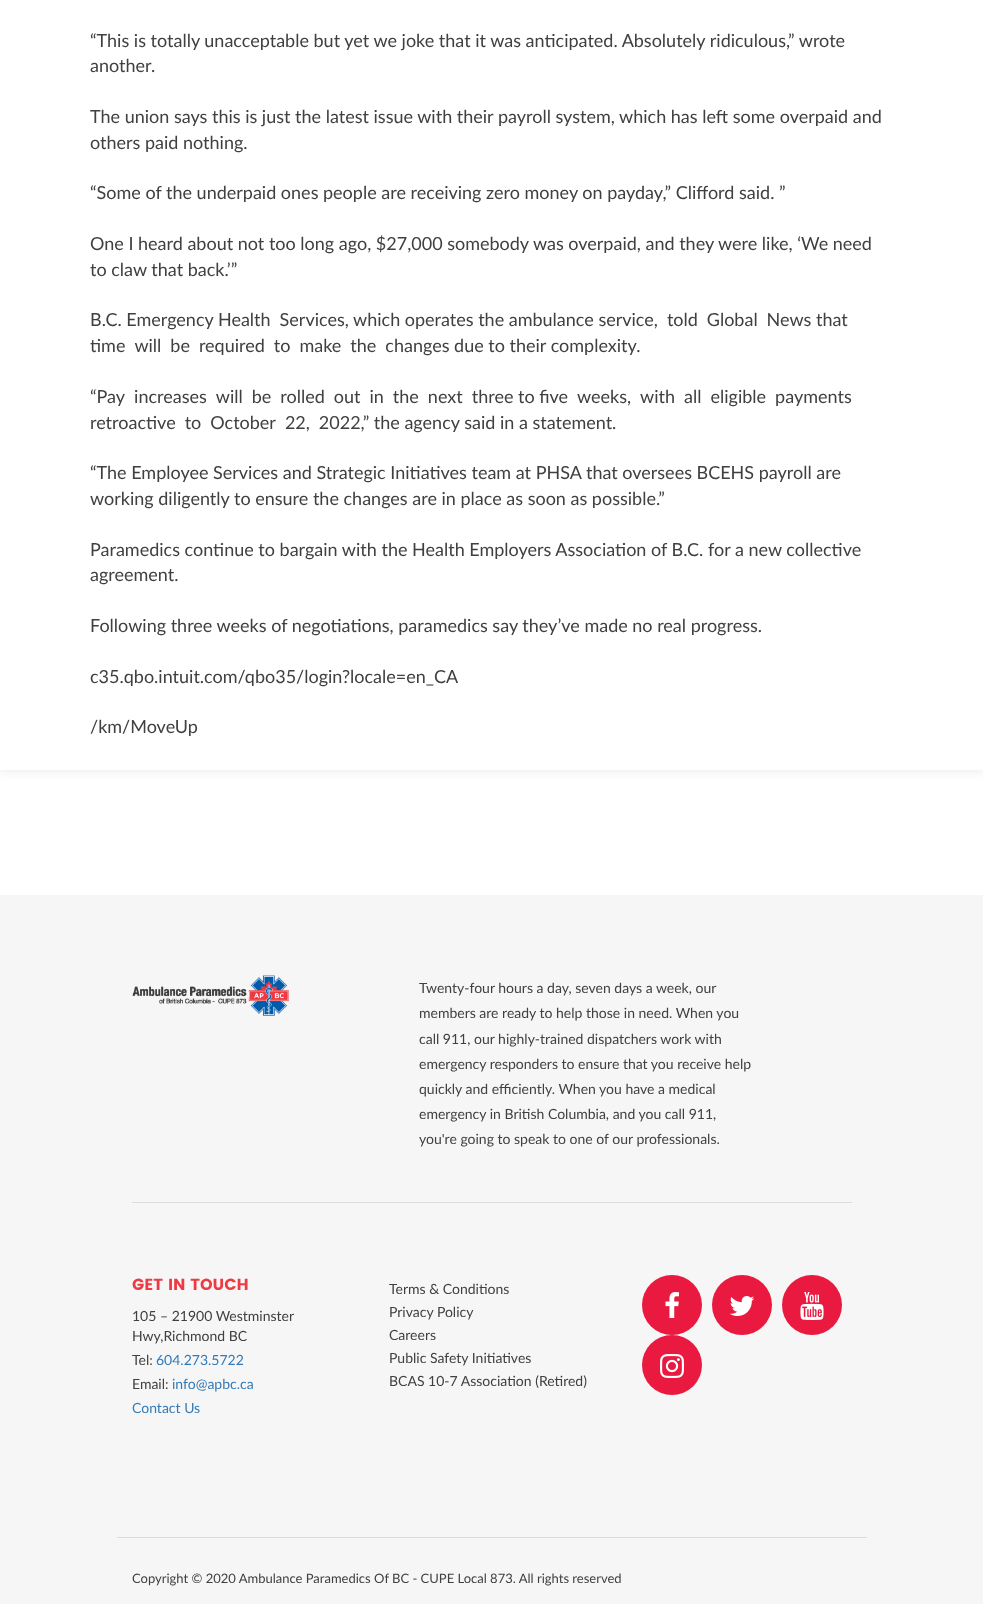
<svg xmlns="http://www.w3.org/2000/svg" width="983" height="1604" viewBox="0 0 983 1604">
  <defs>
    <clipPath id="clip1"><rect x="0" y="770" width="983" height="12"/></clipPath>
    <filter id="blur1" x="-50%" y="-200%" width="200%" height="500%"><feGaussianBlur stdDeviation="5"/></filter>
  </defs>
  <rect width="100%" height="100%" fill="#ffffff"/>
  <g clip-path="url(#clip1)">
    <rect x="-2" y="-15" width="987" height="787" fill="#eeeeee" filter="url(#blur1)"/>
  </g>
  <text x="90" y="47" font-family="Lato" font-size="18" fill="#404040">“This is totally unacceptable but yet we joke that it was anticipated. Absolutely ridiculous,” wrote</text>
  <text x="90" y="72" font-family="Lato" font-size="18" fill="#404040">another.</text>
  <text x="90" y="123" font-family="Lato" font-size="18" fill="#404040">The union says this is just the latest issue with their payroll system, which has left some overpaid and</text>
  <text x="90" y="149" font-family="Lato" font-size="18" fill="#404040">others paid nothing.</text>
  <text x="90" y="199" font-family="Lato" font-size="18" fill="#404040">“Some of the underpaid ones people are receiving zero money on payday,” Clifford said. ”</text>
  <text x="90" y="250" font-family="Lato" font-size="18" fill="#404040">One I heard about not too long ago, $27,000 somebody was overpaid, and they were like, ‘We need</text>
  <text x="90" y="276" font-family="Lato" font-size="18" fill="#404040">to claw that back.’”</text>
  <text x="90" y="326" font-family="Lato" font-size="18" fill="#404040">B.C. Emergency Health Services, which operates the ambulance service, told Global News that</text>
  <text x="90" y="352" font-family="Lato" font-size="18" fill="#404040">time will be required to make the changes due to their complexity.</text>
  <text x="90" y="403" font-family="Lato" font-size="18" fill="#404040">“Pay increases will be rolled out in the next three to five weeks, with all eligible payments</text>
  <text x="90" y="429" font-family="Lato" font-size="18" fill="#404040">retroactive to October 22, 2022,” the agency said in a statement.</text>
  <text x="90" y="479" font-family="Lato" font-size="18" fill="#404040">“The Employee Services and Strategic Initiatives team at PHSA that oversees BCEHS payroll are</text>
  <text x="90" y="505" font-family="Lato" font-size="18" fill="#404040">working diligently to ensure the changes are in place as soon as possible.”</text>
  <text x="90" y="556" font-family="Lato" font-size="18" fill="#404040">Paramedics continue to bargain with the Health Employers Association of B.C. for a new collective</text>
  <text x="90" y="581" font-family="Lato" font-size="18" fill="#404040">agreement.</text>
  <text x="90" y="632" font-family="Lato" font-size="18" fill="#404040">Following three weeks of negotiations, paramedics say they’ve made no real progress.</text>
  <text x="90" y="683" font-family="Lato" font-size="18" fill="#404040">c35.qbo.intuit.com/qbo35/login?locale=en_CA</text>
  <text x="90" y="733" font-family="Lato" font-size="18" fill="#404040">/km/MoveUp</text>
  <rect x="0" y="895" width="983" height="709" fill="#f6f6f6"/>
  <image x="132" y="975" width="157" height="41" href="img1.png"/>
  <text x="419" y="993" font-family="Lato" font-size="14" fill="#404040">Twenty-four hours a day, seven days a week, our</text>
  <text x="419" y="1018" font-family="Lato" font-size="14" fill="#404040">members are ready to help those in need. When you</text>
  <text x="419" y="1044" font-family="Lato" font-size="14" fill="#404040">call 911, our highly-trained dispatchers work with</text>
  <text x="419" y="1069" font-family="Lato" font-size="14" fill="#404040">emergency responders to ensure that you receive help</text>
  <text x="419" y="1094" font-family="Lato" font-size="14" fill="#404040">quickly and efficiently. When you have a medical</text>
  <text x="419" y="1119" font-family="Lato" font-size="14" fill="#404040">emergency in British Columbia, and you call 911,</text>
  <text x="419" y="1144" font-family="Lato" font-size="14" fill="#404040">you're going to speak to one of our professionals.</text>
  <rect x="132" y="1202" width="720" height="1" fill="#dcdcdc"/>
  <text x="132" y="1290" font-family="Poppins" font-size="16" font-weight="bold" fill="#ee3a43">GET IN TOUCH</text>
  <text x="132" y="1321" font-family="Lato" font-size="14" fill="#404040">105 – 21900 Westminster</text>
  <text x="132" y="1341" font-family="Lato" font-size="14" fill="#404040">Hwy,Richmond BC</text>
  <text x="132" y="1365" font-family="Lato" font-size="14" fill="#404040">Tel:</text>
  <text x="156" y="1365" font-family="Lato" font-size="14" fill="#337ab7">604.273.5722</text>
  <text x="132" y="1389" font-family="Lato" font-size="14" fill="#404040">Email:</text>
  <text x="172" y="1389" font-family="Lato" font-size="14" fill="#337ab7">info@apbc.ca</text>
  <text x="132" y="1413" font-family="Lato" font-size="14" fill="#337ab7">Contact Us</text>
  <text x="389" y="1294" font-family="Lato" font-size="14" fill="#404040">Terms &amp; Conditions</text>
  <text x="389" y="1317" font-family="Lato" font-size="14" fill="#404040">Privacy Policy</text>
  <text x="389" y="1340" font-family="Lato" font-size="14" fill="#404040">Careers</text>
  <text x="389" y="1363" font-family="Lato" font-size="14" fill="#404040">Public Safety Initiatives</text>
  <text x="389" y="1386" font-family="Lato" font-size="14" fill="#404040">BCAS 10-7 Association (Retired)</text>
  <circle cx="672" cy="1305" r="30" fill="#ea1940"/>
  <image x="665" y="1292" width="14" height="26" href="img2.png"/>
  <circle cx="742" cy="1305" r="30" fill="#ea1940"/>
  <image x="729" y="1296" width="26" height="20" href="img3.png"/>
  <circle cx="812" cy="1305" r="30" fill="#ea1940"/>
  <image x="800" y="1292" width="24" height="28" href="img4.png"/>
  <circle cx="672" cy="1365" r="30" fill="#ea1940"/>
  <image x="660" y="1354" width="24" height="24" href="img5.png"/>
  <rect x="117" y="1537" width="750" height="1" fill="#dcdcdc"/>
  <text x="132" y="1583" font-family="Lato" font-size="13" fill="#404040">Copyright © 2020 Ambulance Paramedics Of BC - CUPE Local 873. All rights reserved</text>
</svg>
